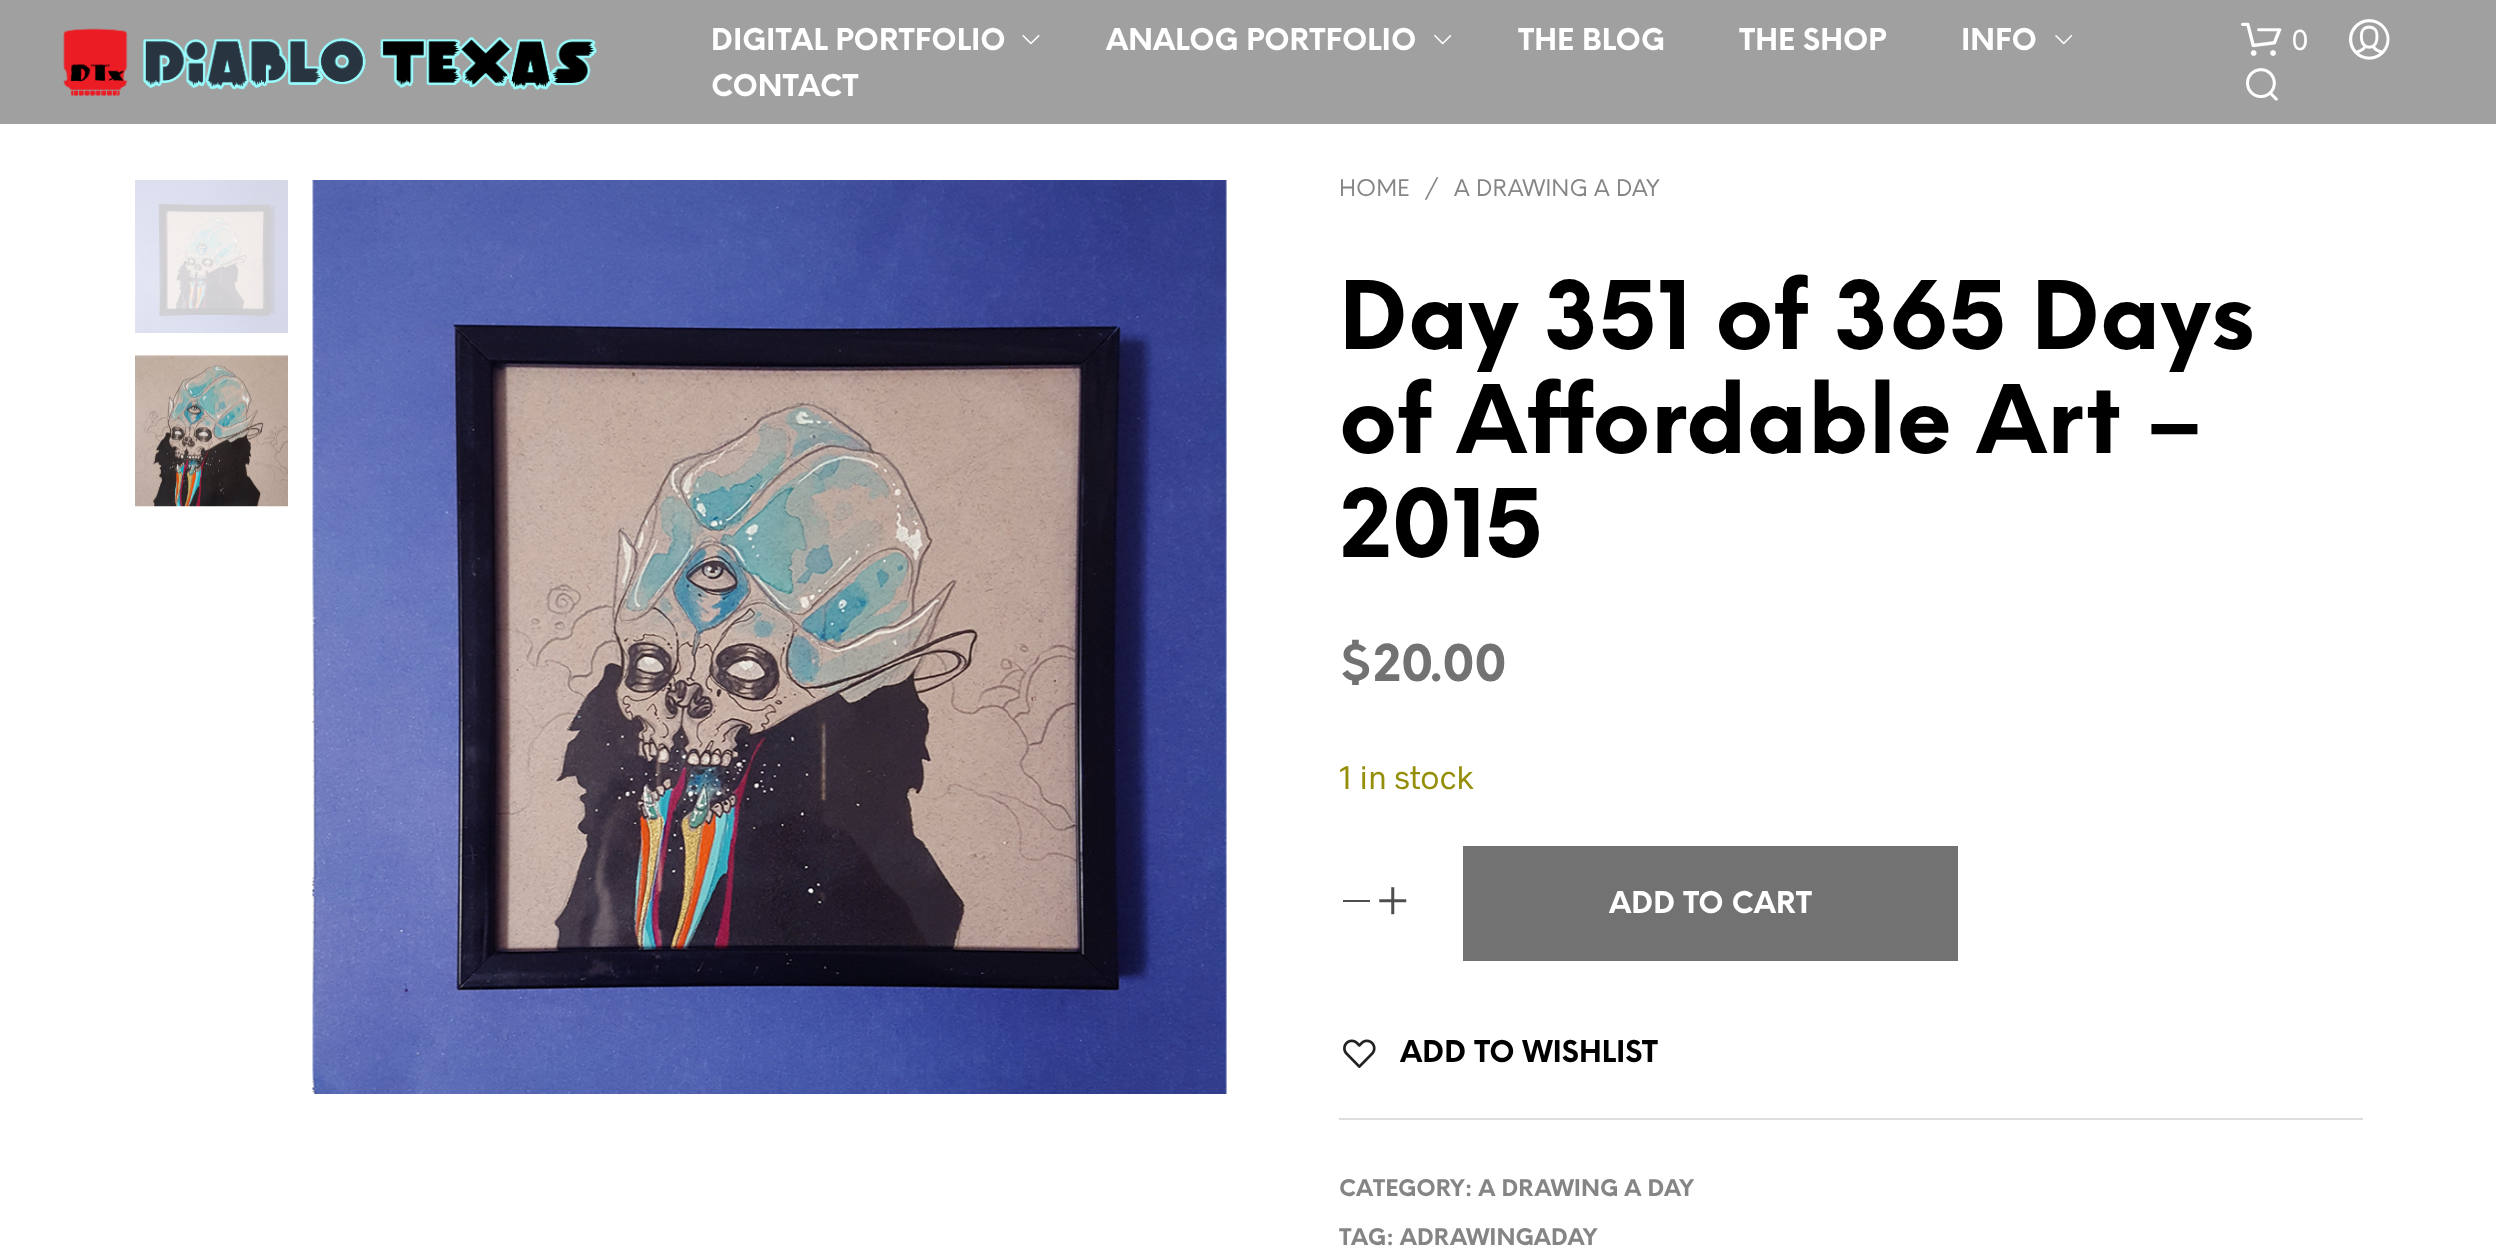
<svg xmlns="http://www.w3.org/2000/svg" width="2496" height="1252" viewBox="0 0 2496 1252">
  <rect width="100%" height="100%" fill="#ffffff"/>
  <rect x="0" y="0" width="2496" height="124" fill="#a0a0a0"/>
  <image x="63" y="28" width="534" height="68" href="img1.png"/>
  <text x="711" y="50" font-family="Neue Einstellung" font-size="29.25" font-weight="bold" fill="#ffffff">DIGITAL PORTFOLIO</text>
  <image x="1022" y="35" width="18" height="10" href="img2.png"/>
  <text x="1106" y="50" font-family="Neue Einstellung" font-size="29.25" font-weight="bold" fill="#ffffff">ANALOG PORTFOLIO</text>
  <image x="1434" y="35" width="18" height="10" href="img3.png"/>
  <text x="1518" y="50" font-family="Neue Einstellung" font-size="29.25" font-weight="bold" fill="#ffffff">THE BLOG</text>
  <text x="1739" y="50" font-family="Neue Einstellung" font-size="29.25" font-weight="bold" fill="#ffffff">THE SHOP</text>
  <text x="1961" y="50" font-family="Neue Einstellung" font-size="29.25" font-weight="bold" fill="#ffffff">INFO</text>
  <image x="2055" y="35" width="18" height="10" href="img3.png"/>
  <text x="711" y="96" font-family="Neue Einstellung" font-size="29.25" font-weight="bold" fill="#ffffff">CONTACT</text>
  <image x="2241" y="22" width="41" height="34" href="img4.png"/>
  <text x="2292" y="50" font-family="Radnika" font-size="29.25" fill="#ffffff">0</text>
  <image x="2349" y="19" width="41" height="41" href="img5.png"/>
  <image x="2246" y="68" width="32" height="33" href="img6.png"/>
  <image x="135" y="180" width="153" height="153" href="img7.png"/>
  <image x="135" y="355" width="153" height="152" href="img8.png"/>
  <image x="312" y="180" width="915" height="914" href="img9.png"/>
  <text x="1339" y="196" font-family="Neue Einstellung" font-size="22.5" fill="#858585">HOME</text>
  <text x="1425" y="196" font-family="Neue Einstellung" font-size="22.5" fill="#858585">/</text>
  <text x="1454" y="196" font-family="Neue Einstellung" font-size="22.5" fill="#858585">A DRAWING A DAY</text>
  <text x="1339" y="349" font-family="Neue Einstellung" font-size="92" font-weight="bold" fill="#000000">Day 351 of 365 Days</text>
  <text x="1339" y="453" font-family="Neue Einstellung" font-size="92" font-weight="bold" fill="#000000">of Affordable Art –</text>
  <text x="1339" y="557" font-family="Neue Einstellung" font-size="92" font-weight="bold" fill="#000000">2015</text>
  <text x="1339" y="681" font-family="Neue Einstellung" font-size="49.5" font-weight="bold" fill="#727272">$20.00</text>
  <text x="1339" y="789" font-family="Radnika" font-size="33" fill="#958e09">1 in stock</text>
  <rect x="1343" y="900" width="27" height="2" fill="#4e4e4e"/>
  <image x="1379" y="887" width="28" height="28" href="img10.png"/>
  <rect x="1463" y="846" width="495" height="115" fill="#727272"/>
  <text x="1609" y="913" font-family="Neue Einstellung" font-size="29.25" font-weight="bold" fill="#ffffff">ADD TO CART</text>
  <image x="1343" y="1039" width="33" height="29" href="img11.png"/>
  <text x="1400" y="1062" font-family="Neue Einstellung" font-size="29.25" font-weight="bold" fill="#000000">ADD TO WISHLIST</text>
  <rect x="1339" y="1118" width="1024" height="2" fill="#dedede"/>
  <text x="1339" y="1196" font-family="Neue Einstellung" font-size="22.5" font-weight="bold" fill="#858585">CATEGORY: A DRAWING A DAY</text>
  <text x="1339" y="1245" font-family="Neue Einstellung" font-size="22.5" font-weight="bold" fill="#858585">TAG: ADRAWINGADAY</text>
</svg>
